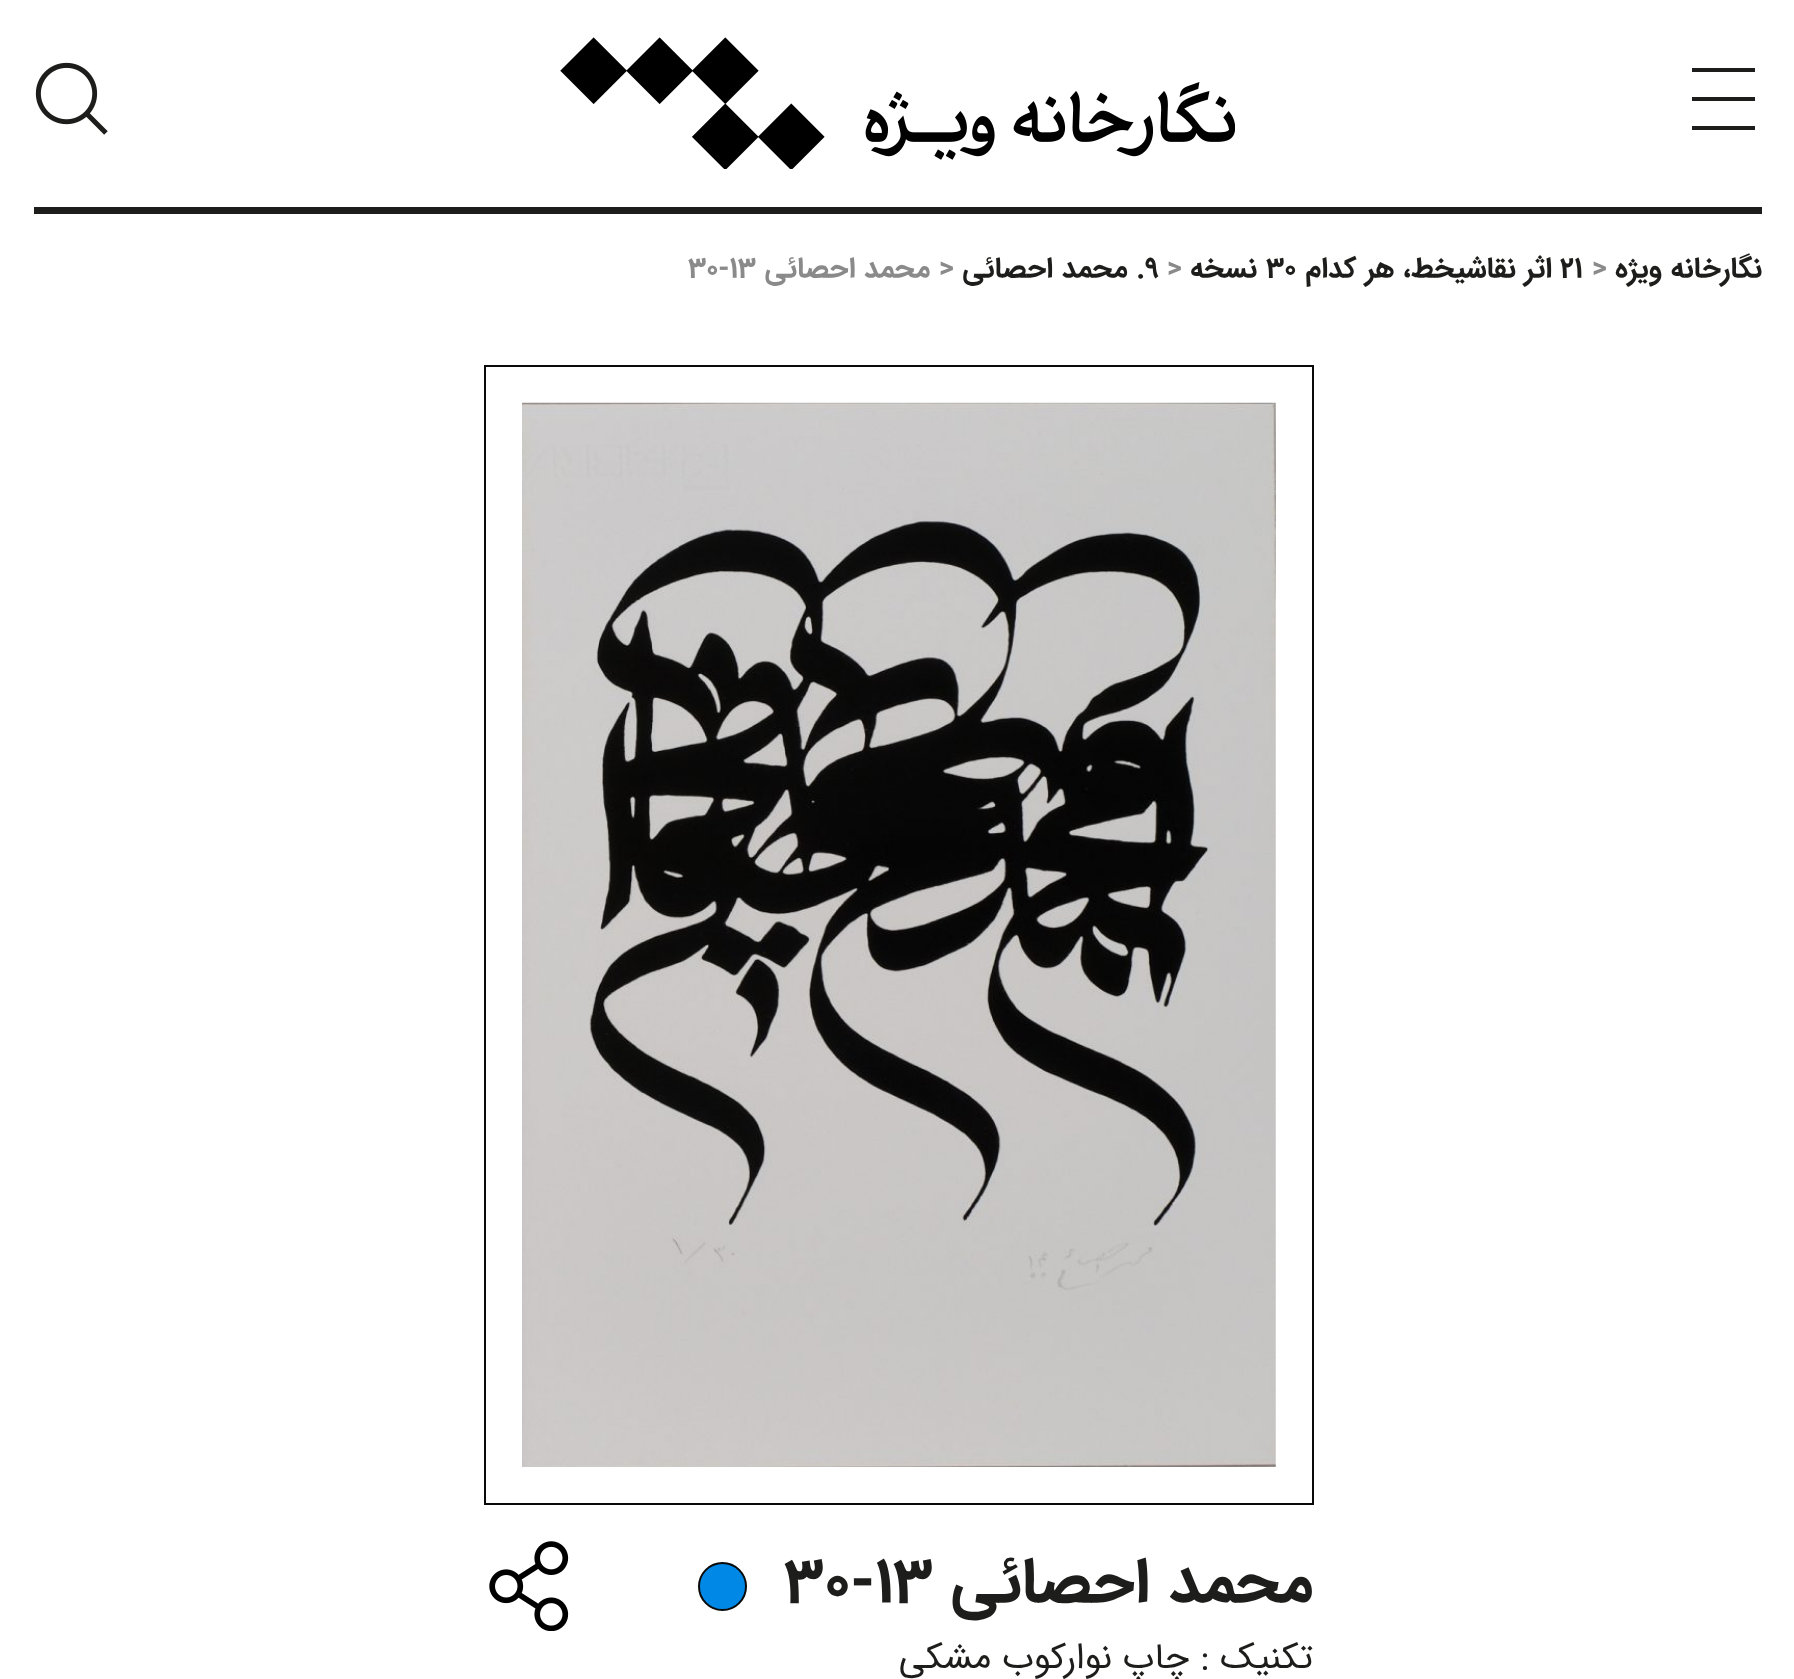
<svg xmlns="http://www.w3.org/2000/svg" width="1794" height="1679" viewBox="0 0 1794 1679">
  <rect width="100%" height="100%" fill="#ffffff"/>
  <rect x="34" y="207" width="1728" height="7" fill="#1d1d1b"/>
  <path d="M1692 68H1755V72H1692ZM1692 97H1755V101H1692ZM1692 126H1755V130H1692Z" fill="#1d1d1b"/>
  <image x="560" y="37" width="675" height="132" href="img1.png"/>
  <image x="35" y="62" width="73" height="73" href="img2.png"/>
  <text x="1762" y="277" font-family="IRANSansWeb" font-size="28.75" font-weight="bold" direction="rtl" fill="#1d1d1b">نگارخانه ویژه</text>
  <text x="1592" y="277" font-family="IRANSansWeb" font-size="28.75" font-weight="bold" fill="#8a8a8a">&gt;</text>
  <text x="1560" y="277" font-family="IRANSansWeb" font-size="28.75" font-weight="bold" fill="#1d1d1b">۲۱</text>
  <text x="1552" y="277" font-family="IRANSansWeb" font-size="28.75" font-weight="bold" direction="rtl" fill="#1d1d1b">اثر نقاشیخط، هر کدام</text>
  <text x="1266" y="277" font-family="IRANSansWeb" font-size="28.75" font-weight="bold" fill="#1d1d1b">۳۰</text>
  <text x="1257" y="277" font-family="IRANSansWeb" font-size="28.75" font-weight="bold" direction="rtl" fill="#1d1d1b">نسخه</text>
  <text x="1167" y="277" font-family="IRANSansWeb" font-size="28.75" font-weight="bold" fill="#8a8a8a">&gt;</text>
  <text x="1145" y="277" font-family="IRANSansWeb" font-size="28.75" font-weight="bold" fill="#1d1d1b">۹</text>
  <text x="1145" y="277" font-family="IRANSansWeb" font-size="28.75" font-weight="bold" direction="rtl" fill="#1d1d1b">. محمد احصائی</text>
  <text x="939" y="277" font-family="IRANSansWeb" font-size="28.75" font-weight="bold" fill="#8a8a8a">&gt;</text>
  <text x="930" y="277" font-family="IRANSansWeb" font-size="28.75" font-weight="bold" direction="rtl" fill="#8a8a8a">محمد احصائی</text>
  <text x="688" y="277" font-family="IRANSansWeb" font-size="28.75" font-weight="bold" fill="#8a8a8a">۳۰-۱۳</text>
  <rect x="485" y="366" width="828" height="1138" fill="none" stroke="#0a0a0a" stroke-width="2"/>
  <image x="522" y="402" width="754" height="1065" href="img3.png"/>
  <text x="1313" y="1601" font-family="IRANSansWeb" font-size="63" font-weight="bold" direction="rtl" fill="#1d1d1b">محمد احصائی</text>
  <text x="784" y="1601" font-family="IRANSansWeb" font-size="63" font-weight="bold" fill="#1d1d1b">۳۰-۱۳</text>
  <circle cx="722.5" cy="1586.5" r="23.5" fill="#0088e6" stroke="#0a0a0a" stroke-width="2"/>
  <text x="1313" y="1668" font-family="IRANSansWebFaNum" font-size="36" direction="rtl" fill="#1d1d1b">تکنیک :</text>
  <text x="1189" y="1668" font-family="IRANSansWebFaNum" font-size="36" direction="rtl" fill="#1d1d1b">چاپ نوارکوب مشکی</text>
  <image x="489" y="1541" width="80" height="90" href="img4.png"/>
</svg>
